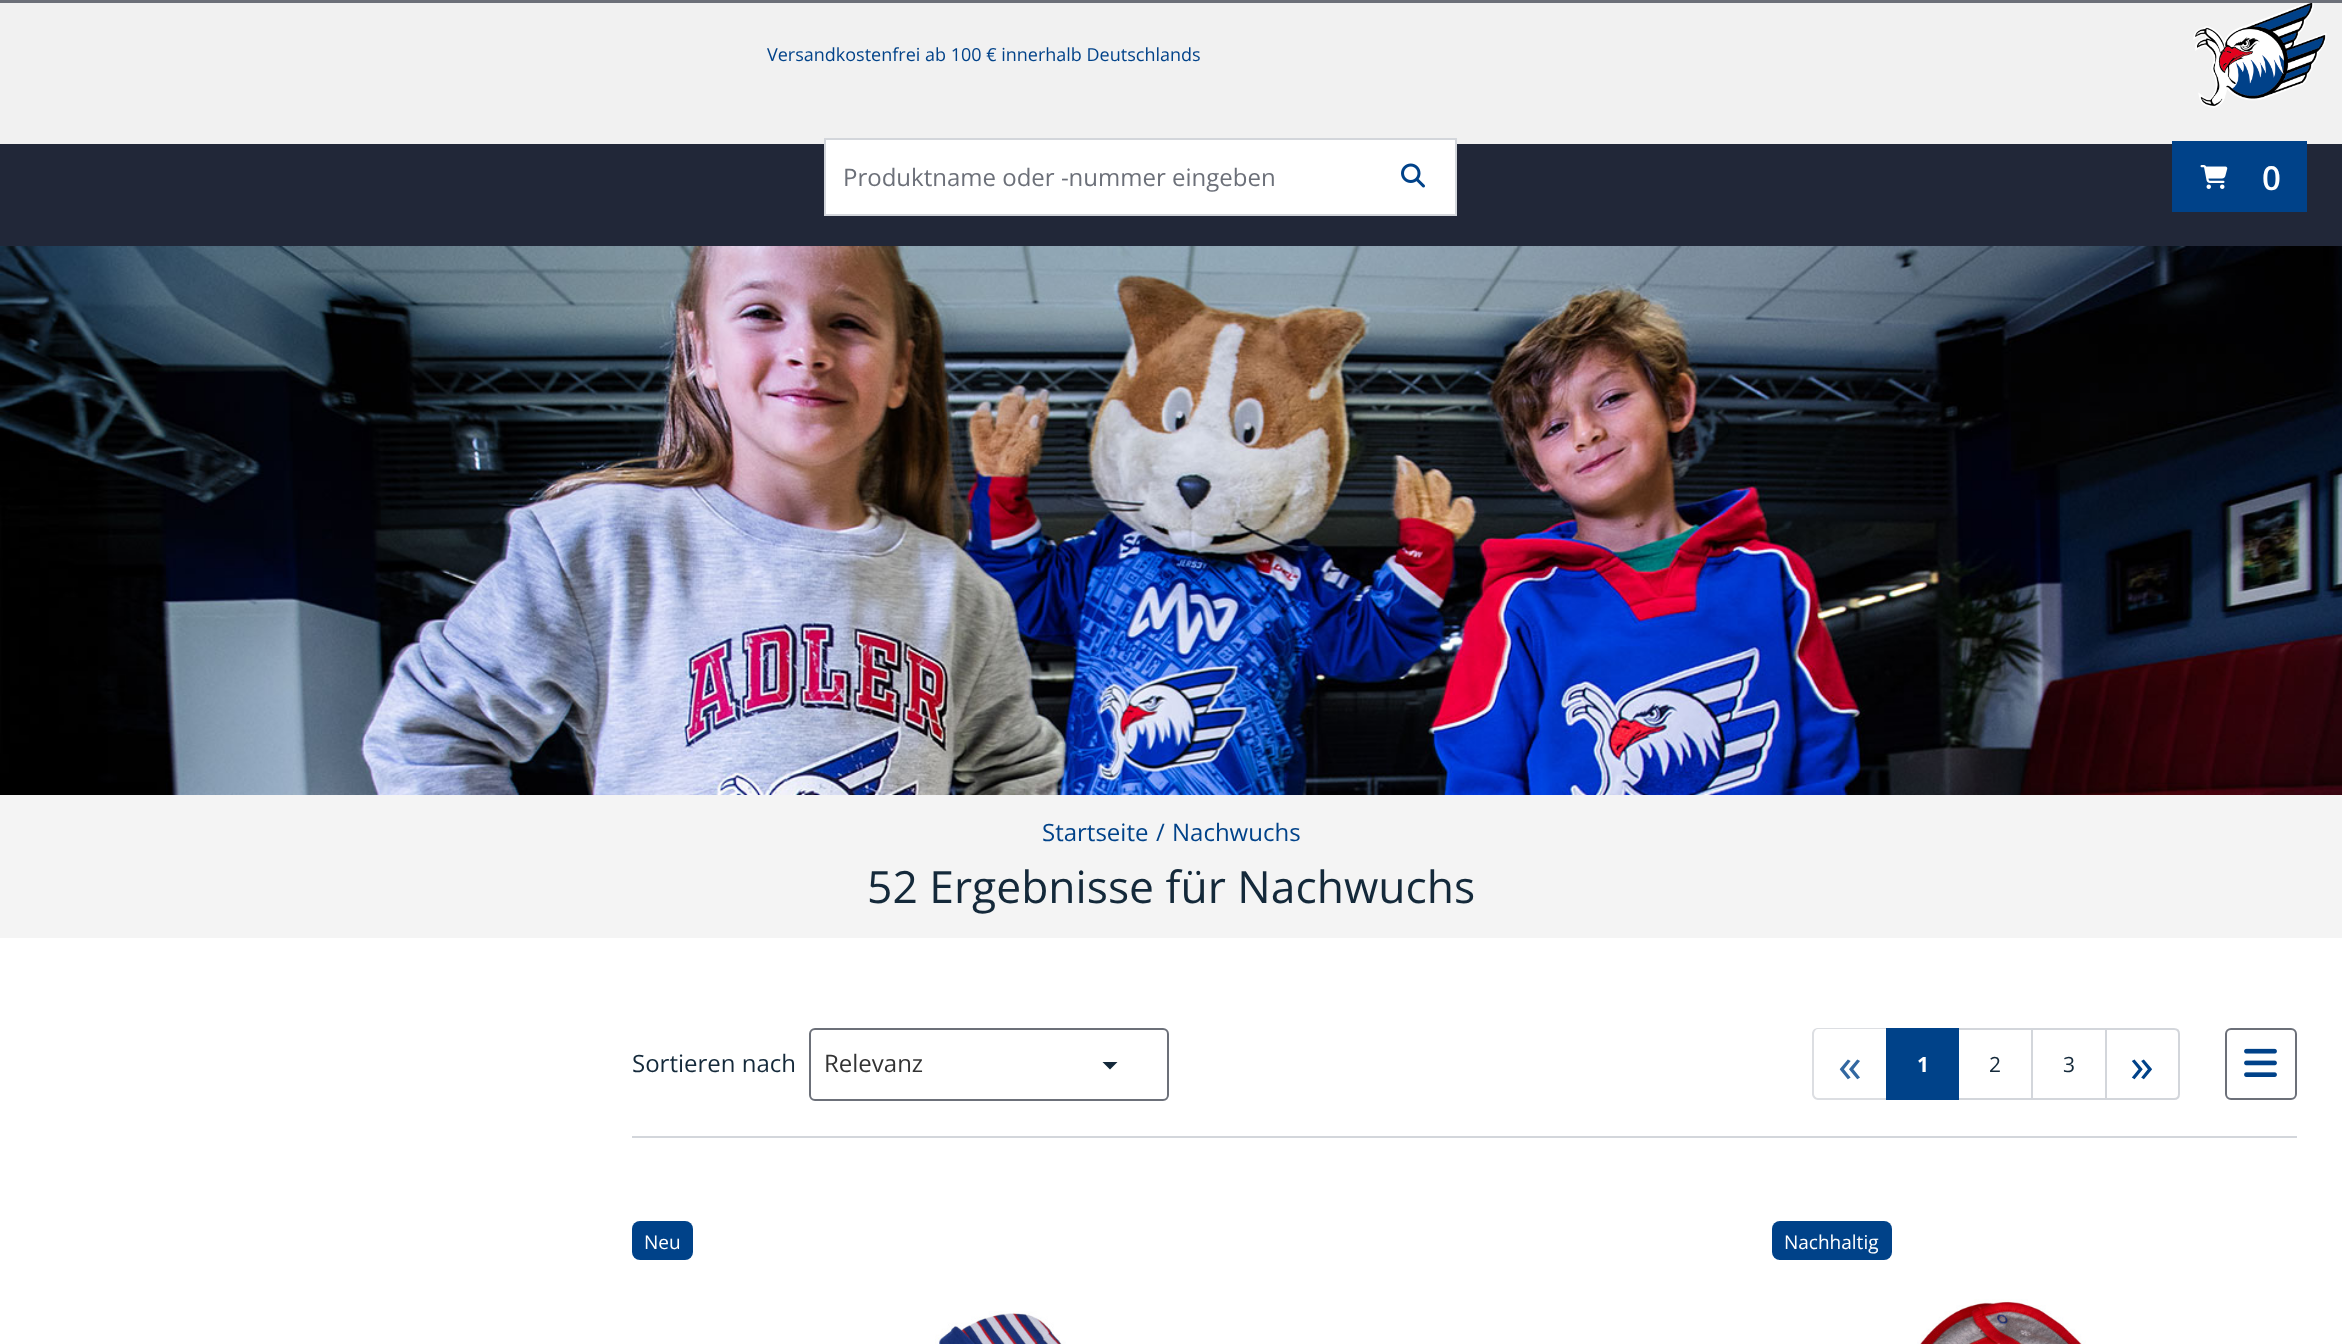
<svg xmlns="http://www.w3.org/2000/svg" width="2342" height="1344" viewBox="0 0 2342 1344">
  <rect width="100%" height="100%" fill="#ffffff"/>
  <rect x="0" y="0" width="2342" height="3" fill="#6c7079"/>
  <rect x="0" y="144" width="2342" height="102" fill="#212738"/>
  <rect x="0" y="3" width="2342" height="141" fill="#f1f1f1"/>
  <text x="767" y="61" font-family="Open Sans" font-size="18" fill="#004289">Versandkostenfrei ab 100 € innerhalb Deutschlands</text>
  <image x="2193" y="3" width="134" height="105" href="img1.png"/>
  <rect x="825" y="139" width="631" height="76" fill="#ffffff" stroke="#d3d6db" stroke-width="2"/>
  <text x="843" y="186" font-family="Open Sans" font-size="24" fill="#6c7079">Produktname oder -nummer eingeben</text>
  <image x="1401" y="163" width="24" height="25" href="img2.png"/>
  <rect x="2172" y="141" width="135" height="71" fill="#004289"/>
  <image x="2200" y="165" width="28" height="24" href="img3.png"/>
  <text x="2262" y="190" font-family="Open Sans" font-size="33" font-weight="600" fill="#ffffff">0</text>
  <image x="0" y="246" width="2342" height="549" href="img4.png"/>
  <rect x="0" y="795" width="2342" height="143" fill="#f4f4f4"/>
  <text x="1042" y="841" font-family="Open Sans" font-size="24" fill="#004289">Startseite</text>
  <text x="1156" y="841" font-family="Open Sans" font-size="24" fill="#004289">/</text>
  <text x="1172" y="841" font-family="Open Sans" font-size="24" fill="#004289">Nachwuchs</text>
  <text x="867" y="903" font-family="Open Sans" font-size="44.4" fill="#14293a">52 Ergebnisse für Nachwuchs</text>
  <rect x="632" y="1136" width="1665" height="2" fill="#d3d6db"/>
  <text x="632" y="1072" font-family="Open Sans" font-size="24" fill="#14293a">Sortieren nach</text>
  <rect x="810" y="1029" width="358" height="71" rx="5" fill="none" stroke="#6c7079" stroke-width="2"/>
  <text x="824" y="1072" font-family="Open Sans" font-size="24" fill="#333333">Relevanz</text>
  <path d="M1102.5 1062H1117.5L1110 1069.5Z" fill="#14293a"/>
  <path d="M1818 1028H1886V1100H1818C1815 1100 1812 1097 1812 1094V1034C1812 1030 1815 1028 1818 1028ZM1818 1029H1886V1098H1818C1816 1098 1814 1096 1814 1094V1034C1814 1031 1816 1029 1818 1029Z" fill="#dcdee2" fill-rule="evenodd"/>
  <text x="1838" y="1082" font-family="Open Sans" font-size="48" fill="#3368a1">«</text>
  <rect x="1886" y="1028" width="73" height="72" fill="#004289"/>
  <text x="1917" y="1072" font-family="Open Sans" font-size="21" font-weight="bold" fill="#ffffff">1</text>
  <rect x="1959" y="1028" width="146" height="2" fill="#d3d6db"/>
  <rect x="1959" y="1098" width="146" height="2" fill="#d3d6db"/>
  <text x="1989" y="1072" font-family="Open Sans" font-size="21" fill="#14293a">2</text>
  <rect x="2031" y="1028" width="2" height="72" fill="#d3d6db"/>
  <text x="2063" y="1072" font-family="Open Sans" font-size="21" fill="#14293a">3</text>
  <path d="M2106 1029H2174C2177 1029 2179 1031 2179 1034V1094C2179 1097 2177 1099 2174 1099H2106Z" fill="none" stroke="#d3d6db" stroke-width="2"/>
  <text x="2130" y="1082" font-family="Open Sans" font-size="48" fill="#004289">»</text>
  <rect x="2226" y="1029" width="70" height="70" rx="5" fill="none" stroke="#6c7079" stroke-width="2"/>
  <image x="2244" y="1048" width="33" height="29" href="img5.png"/>
  <rect x="632" y="1221" width="61" height="39" rx="8" fill="#004289"/>
  <text x="644" y="1249" font-family="Open Sans" font-size="19" fill="#ffffff">Neu</text>
  <image x="935" y="1311" width="131" height="33" href="img6.png"/>
  <rect x="1772" y="1221" width="120" height="39" rx="8" fill="#004289"/>
  <text x="1784" y="1249" font-family="Open Sans" font-size="19" fill="#ffffff">Nachhaltig</text>
  <image x="1917" y="1299" width="169" height="45" href="img7.png"/>
</svg>
